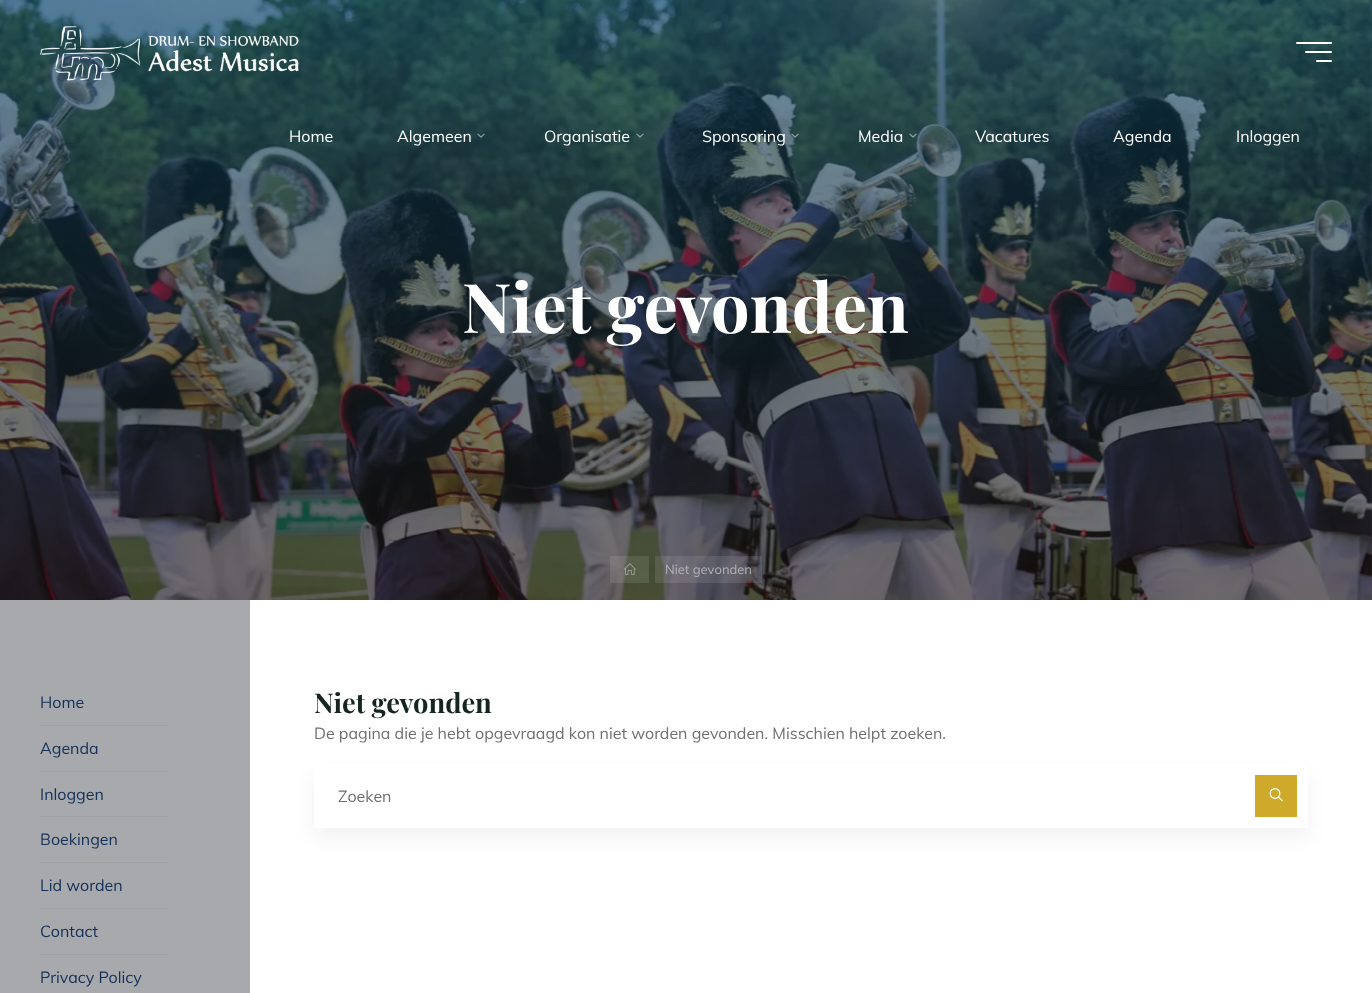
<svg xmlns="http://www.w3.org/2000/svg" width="1372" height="993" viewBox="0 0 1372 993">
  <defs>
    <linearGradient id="g1" gradientUnits="userSpaceOnUse" x1="686" y1="0" x2="686" y2="600"><stop offset="0" stop-color="#08415c" stop-opacity="0.6"/><stop offset="1" stop-color="#1c110a" stop-opacity="0.6"/></linearGradient>
    <clipPath id="clip1"><path d="M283 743H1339V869H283ZM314 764H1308V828H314Z" clip-rule="evenodd"/></clipPath>
    <filter id="blur1" x="-50%" y="-200%" width="200%" height="500%"><feGaussianBlur stdDeviation="10"/></filter>
  </defs>
  <rect width="100%" height="100%" fill="#a7a9ac"/>
  <image x="0" y="0" width="1372" height="600" href="img6.png"/>
  <rect x="0" y="0" width="1372" height="600" fill="url(#g1)"/>
  <image x="40" y="26" width="259" height="55" href="img1.png"/>
  <rect x="1296" y="42" width="36" height="2" rx="1" fill="#ffffff"/>
  <rect x="1305" y="51" width="27" height="2" rx="1" fill="#ffffff"/>
  <rect x="1316" y="60" width="16" height="2" rx="1" fill="#ffffff"/>
  <text x="289" y="142" font-family="Muli" font-size="16" fill="#ffffff">Home</text>
  <text x="397" y="142" font-family="Muli" font-size="16" fill="#ffffff">Algemeen</text>
  <image x="477" y="133" width="8" height="5" href="img2.png"/>
  <text x="544" y="142" font-family="Muli" font-size="16" fill="#ffffff">Organisatie</text>
  <image x="636" y="133" width="8" height="5" href="img3.png"/>
  <text x="702" y="142" font-family="Muli" font-size="16" fill="#ffffff">Sponsoring</text>
  <image x="791" y="133" width="8" height="5" href="img4.png"/>
  <text x="858" y="142" font-family="Muli" font-size="16" fill="#ffffff">Media</text>
  <image x="909" y="133" width="8" height="5" href="img5.png"/>
  <text x="975" y="142" font-family="Muli" font-size="16" fill="#ffffff">Vacatures</text>
  <text x="1113" y="142" font-family="Muli" font-size="16" fill="#ffffff">Agenda</text>
  <text x="1236" y="142" font-family="Muli" font-size="16" fill="#ffffff">Inloggen</text>
  <text x="462" y="333" font-family="Playfair Display" font-size="68.5" font-weight="bold" fill="#ffffff">Niet gevonden</text>
  <rect x="610" y="556" width="39" height="27" fill="#ffffff" fill-opacity="0.1"/>
  <image x="624" y="563" width="12" height="12" href="img7.png"/>
  <rect x="655" y="556" width="107" height="27" fill="#ffffff" fill-opacity="0.1"/>
  <text x="665" y="574" font-family="Muli" font-size="13" fill="#b2b1b6">Niet gevonden</text>
  <rect x="40" y="725" width="129" height="1" fill="#9fa1a3"/>
  <text x="40" y="708" font-family="Muli" font-size="16" fill="#143059">Home</text>
  <rect x="40" y="771" width="129" height="1" fill="#9fa1a3"/>
  <text x="40" y="754" font-family="Muli" font-size="16" fill="#143059">Agenda</text>
  <rect x="40" y="816" width="129" height="1" fill="#9fa1a3"/>
  <text x="40" y="800" font-family="Muli" font-size="16" fill="#143059">Inloggen</text>
  <rect x="40" y="862" width="129" height="1" fill="#9fa1a3"/>
  <text x="40" y="845" font-family="Muli" font-size="16" fill="#143059">Boekingen</text>
  <rect x="40" y="908" width="129" height="1" fill="#9fa1a3"/>
  <text x="40" y="891" font-family="Muli" font-size="16" fill="#143059">Lid worden</text>
  <rect x="40" y="954" width="129" height="1" fill="#9fa1a3"/>
  <text x="40" y="937" font-family="Muli" font-size="16" fill="#143059">Contact</text>
  <text x="40" y="983" font-family="Muli" font-size="16" fill="#143059">Privacy Policy</text>
  <rect x="250" y="600" width="1122" height="393" fill="#ffffff"/>
  <text x="314" y="713" font-family="Playfair Display" font-size="27.25" font-weight="bold" fill="#162521">Niet gevonden</text>
  <text x="314" y="739" font-family="Muli" font-size="16" fill="#707070">De pagina die je hebt opgevraagd kon niet worden gevonden. Misschien helpt zoeken.</text>
  <g clip-path="url(#clip1)">
    <rect x="314" y="774" width="994" height="64" fill="#000000" fill-opacity="0.05" filter="url(#blur1)"/>
  </g>
  <text x="338" y="802" font-family="Muli" font-size="16" fill="#707070">Zoeken</text>
  <rect x="1255" y="775" width="42" height="42" fill="#cea92a"/>
  <image x="1269" y="788" width="14" height="14" href="img8.png"/>
</svg>
